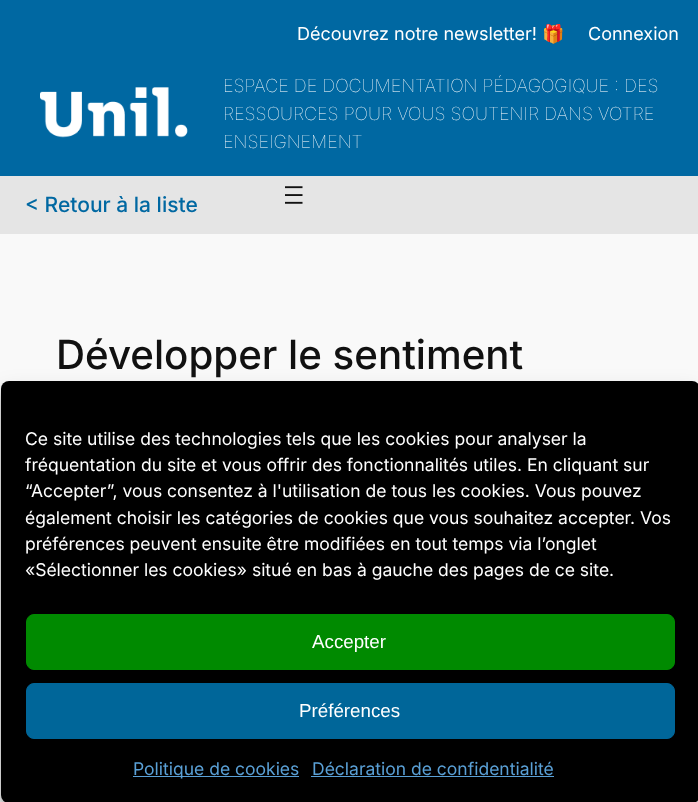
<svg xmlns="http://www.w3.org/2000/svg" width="698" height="802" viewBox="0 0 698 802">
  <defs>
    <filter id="blur1" x="-50%" y="-200%" width="200%" height="500%"><feGaussianBlur stdDeviation="4"/></filter>
    <filter id="blur2" x="-50%" y="-200%" width="200%" height="500%"><feGaussianBlur stdDeviation="12.5"/></filter>
  </defs>
  <rect width="100%" height="100%" fill="#f9f9f9"/>
  <rect x="0" y="0" width="698" height="176" fill="#0068a2"/>
  <text x="297" y="40" font-family="Inter" font-size="18" fill="#ffffff">Découvrez notre newsletter!</text>
  <text x="542" y="40" font-family="Noto Color Emoji" font-size="18" fill="#ffffff">🎁</text>
  <text x="588" y="40" font-family="Inter" font-size="18" fill="#ffffff">Connexion</text>
  <image x="40" y="87" width="148" height="51" href="img1.png"/>
  <text x="223" y="92" font-family="Inter" font-size="18" font-weight="100" fill="#ffffff">ESPACE DE DOCUMENTATION PÉDAGOGIQUE : DES</text>
  <text x="223" y="120" font-family="Inter" font-size="18" font-weight="100" fill="#ffffff">RESSOURCES POUR VOUS SOUTENIR DANS VOTRE</text>
  <text x="223" y="148" font-family="Inter" font-size="18" font-weight="100" fill="#ffffff">ENSEIGNEMENT</text>
  <rect x="0" y="176" width="698" height="58" fill="#e5e5e5"/>
  <text x="25" y="212" font-family="Inter" font-size="21" font-weight="500" fill="#0068a2">&lt; Retour à la liste</text>
  <image x="285" y="186" width="18" height="18" href="img2.png"/>
  <text x="56" y="369" font-family="Inter" font-size="40.25" font-weight="500" fill="#111111">Développer le sentiment</text>
  <rect x="1" y="389" width="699" height="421" rx="8" fill="#000000" fill-opacity="0.23" filter="url(#blur1)"/>
  <rect x="1" y="394" width="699" height="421" rx="8" fill="#000000" fill-opacity="0.19" filter="url(#blur2)"/>
  <rect x="1" y="381" width="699" height="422" rx="8" fill="#000000"/>
  <text x="25" y="445" font-family="Inter" font-size="17.5" fill="#ffffff">Ce site utilise des technologies tels que les cookies pour analyser la</text>
  <text x="25" y="471" font-family="Inter" font-size="17.5" fill="#ffffff">fréquentation du site et vous offrir des fonctionnalités utiles. En cliquant sur</text>
  <text x="25" y="497" font-family="Inter" font-size="17.5" fill="#ffffff">“Accepter”, vous consentez à l'utilisation de tous les cookies. Vous pouvez</text>
  <text x="25" y="524" font-family="Inter" font-size="17.5" fill="#ffffff">également choisir les catégories de cookies que vous souhaitez accepter. Vos</text>
  <text x="25" y="550" font-family="Inter" font-size="17.5" fill="#ffffff">préférences peuvent ensuite être modifiées en tout temps via l’onglet</text>
  <text x="25" y="576" font-family="Inter" font-size="17.5" fill="#ffffff">«Sélectionner les cookies» situé en bas à gauche des pages de ce site.</text>
  <rect x="26.5" y="614.5" width="648" height="55" rx="7.5" fill="#008a00" stroke="#008a00"/>
  <text x="312" y="648" font-family="Liberation Sans" font-size="18.75" fill="#ffffff">Accepter</text>
  <rect x="26.5" y="683.5" width="648" height="55" rx="7.5" fill="#006699" stroke="#006699"/>
  <text x="299" y="717" font-family="Liberation Sans" font-size="18.75" fill="#ffffff">Préférences</text>
  <rect x="133" y="776" width="166" height="1" fill="#5aa0d6"/>
  <text x="133" y="775" font-family="Inter" font-size="17.5" fill="#5aa0d6">Politique de cookies</text>
  <text x="312" y="775" font-family="Inter" font-size="17.5" fill="#5aa0d6">Déclaration de confidentialité</text>
  <rect x="311" y="776" width="243" height="1" fill="#5aa0d6"/>
</svg>
